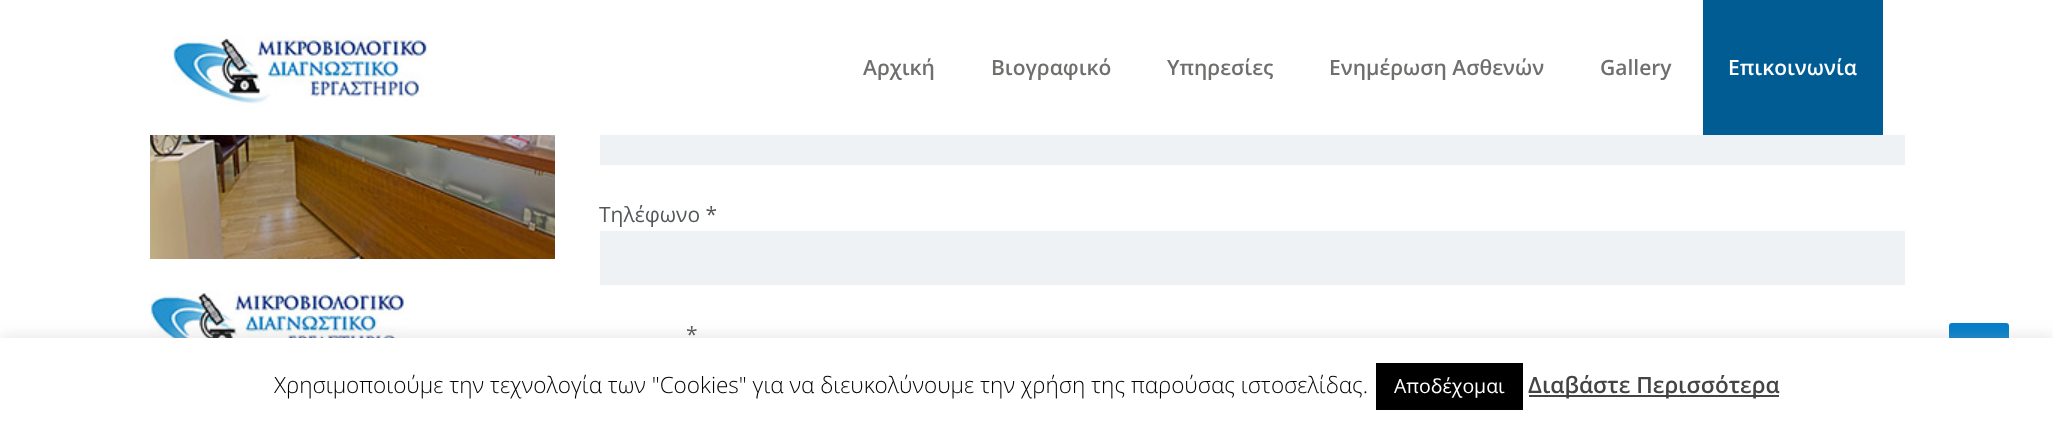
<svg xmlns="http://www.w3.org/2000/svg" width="2053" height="427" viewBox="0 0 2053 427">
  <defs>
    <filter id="blur1" x="-50%" y="-200%" width="200%" height="500%"><feGaussianBlur stdDeviation="7.5"/></filter>
  </defs>
  <rect width="100%" height="100%" fill="#ffffff"/>
  <image x="172" y="36" width="256" height="69" href="img1.png"/>
  <text x="863" y="75" font-family="Open Sans" font-size="21" font-weight="600" fill="#6f6f6e">Αρχική</text>
  <text x="991" y="75" font-family="Open Sans" font-size="21" font-weight="600" fill="#6f6f6e">Βιογραφικό</text>
  <text x="1167" y="75" font-family="Open Sans" font-size="21" font-weight="600" fill="#6f6f6e">Υπηρεσίες</text>
  <text x="1329" y="75" font-family="Open Sans" font-size="21" font-weight="600" fill="#6f6f6e">Ενημέρωση Ασθενών</text>
  <text x="1600" y="75" font-family="Open Sans" font-size="21" font-weight="600" fill="#6f6f6e">Gallery</text>
  <rect x="1703" y="0" width="180" height="135" fill="#005c93"/>
  <text x="1728" y="75" font-family="Open Sans" font-size="21" font-weight="600" fill="#ffffff">Επικοινωνία</text>
  <image x="150" y="135" width="405" height="124" href="img2.png"/>
  <image x="150" y="290" width="255" height="48" href="img3.png"/>
  <rect x="600" y="135" width="1305" height="30" fill="#eef2f5"/>
  <text x="599" y="222" font-family="Open Sans" font-size="21" fill="#54585a">Τηλέφωνο *</text>
  <rect x="600" y="231" width="1305" height="54" fill="#eef2f5"/>
  <text x="686" y="342" font-family="Open Sans" font-size="21" fill="#54585a">*</text>
  <rect x="1949" y="323" width="60" height="60" rx="3" fill="#007dc8"/>
  <rect x="0" y="336" width="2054" height="90" fill="#acabab" fill-opacity="0.3" filter="url(#blur1)"/>
  <rect x="0" y="338" width="2053" height="89" fill="#ffffff"/>
  <text x="274" y="393" font-family="Open Sans" font-size="22.5" font-weight="300" fill="#000000">Χρησιμοποιούμε την τεχνολογία των "Cookies" για να διευκολύνουμε την χρήση της παρούσας ιστοσελίδας.</text>
  <rect x="1376" y="363" width="147" height="47" fill="#000000"/>
  <text x="1394" y="393" font-family="Open Sans" font-size="19.5" fill="#ffffff">Αποδέχομαι</text>
  <rect x="1529" y="395" width="250" height="2" fill="#444444"/>
  <text x="1528" y="393" font-family="Open Sans" font-size="22.5" font-weight="600" fill="#444444">Διαβάστε Περισσότερα</text>
</svg>
